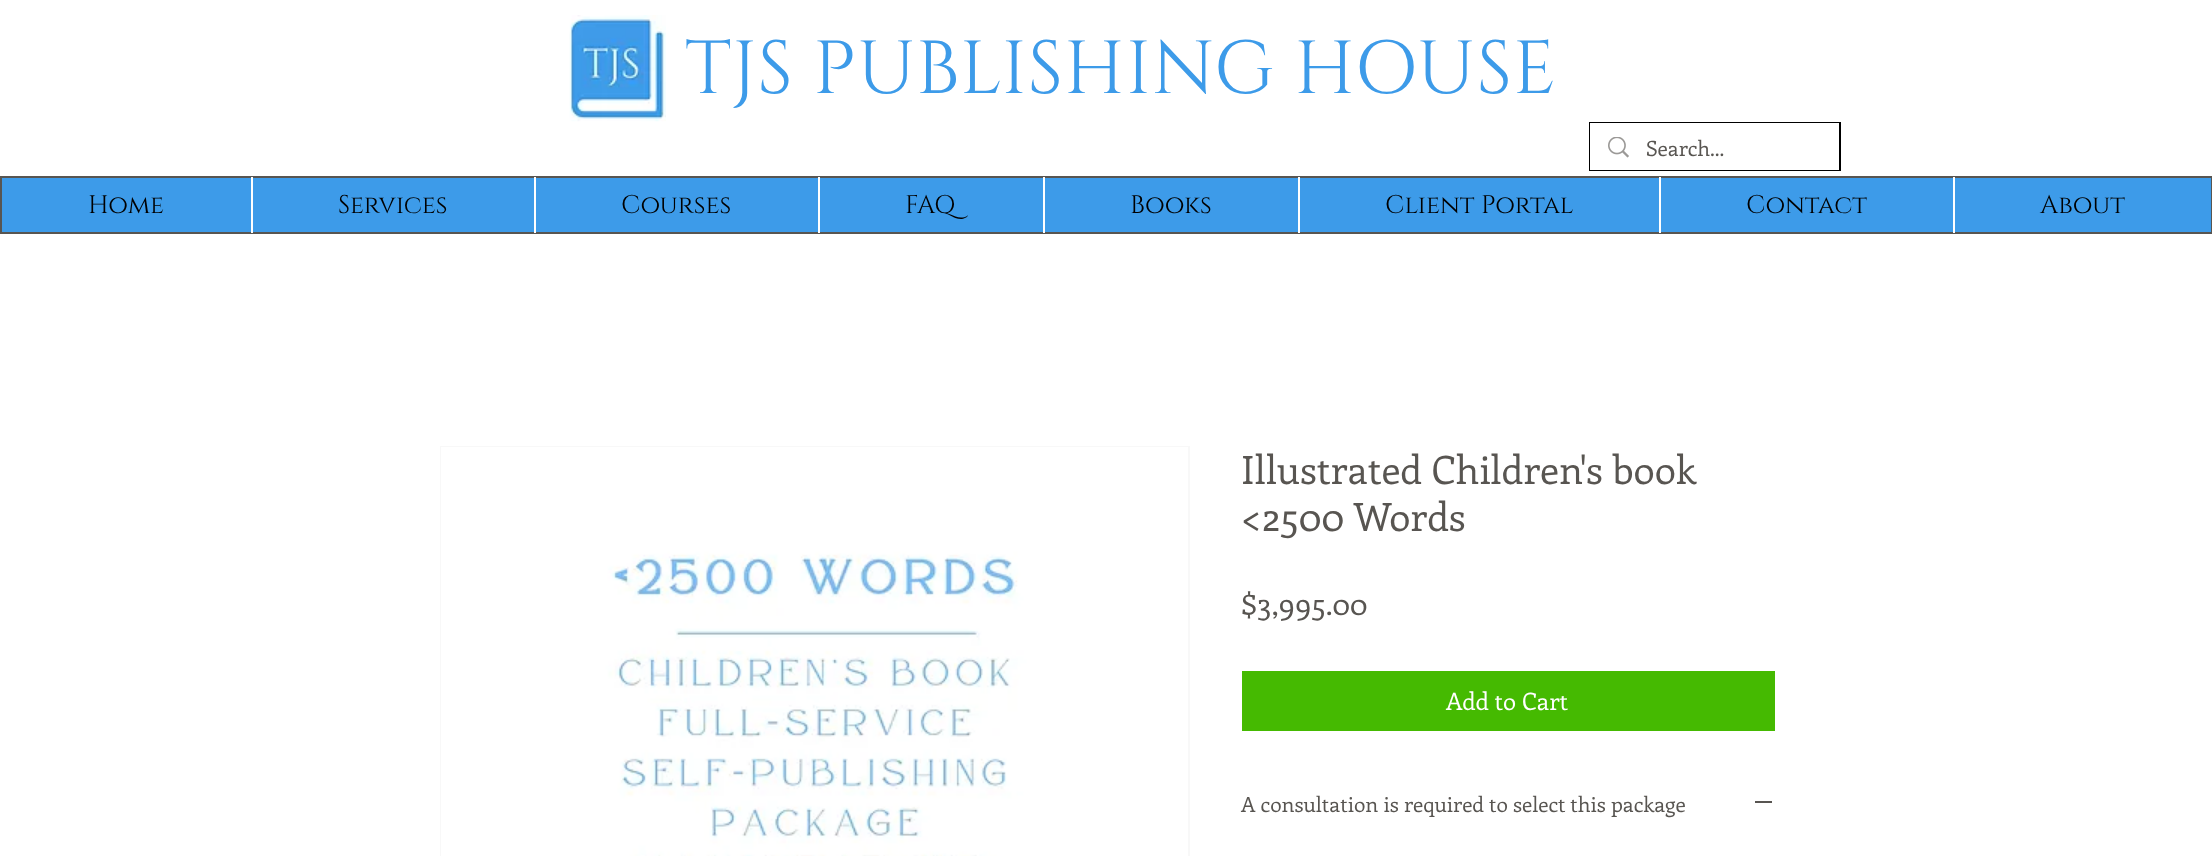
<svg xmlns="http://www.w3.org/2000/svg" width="2212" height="856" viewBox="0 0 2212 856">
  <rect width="100%" height="100%" fill="#ffffff"/>
  <image x="569" y="15" width="97" height="107" href="img1.png"/>
  <text x="685" y="93" font-family="Cinzel" font-size="75" letter-spacing="0.75" fill="#3d9be9">TJS PUBLISHING HOUSE</text>
  <rect x="1590" y="123" width="250" height="47" fill="none" stroke="#000000" stroke-width="2"/>
  <rect x="1590" y="123" width="249" height="47" fill="#ffffff"/>
  <image x="1608" y="137" width="21" height="21" href="img2.png"/>
  <text x="1646" y="156" font-family="Enriqueta" font-size="21" fill="#585551">Search...</text>
  <rect x="1" y="177" width="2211" height="56" fill="#3d9be9" stroke="#585551" stroke-width="2"/>
  <text x="88" y="213" font-family="Cinzel" font-size="25.5" fill="#000000">Home</text>
  <rect x="251" y="177" width="2" height="56" fill="#ffffff"/>
  <text x="338" y="213" font-family="Cinzel" font-size="25.5" fill="#000000">Services</text>
  <rect x="534" y="177" width="2" height="56" fill="#ffffff"/>
  <text x="621" y="213" font-family="Cinzel" font-size="25.5" fill="#000000">Courses</text>
  <rect x="818" y="177" width="2" height="56" fill="#ffffff"/>
  <text x="905" y="213" font-family="Cinzel" font-size="25.5" fill="#000000">FAQ</text>
  <rect x="1043" y="177" width="2" height="56" fill="#ffffff"/>
  <text x="1130" y="213" font-family="Cinzel" font-size="25.5" fill="#000000">Books</text>
  <rect x="1298" y="177" width="2" height="56" fill="#ffffff"/>
  <text x="1385" y="213" font-family="Cinzel" font-size="25.5" fill="#000000">Client Portal</text>
  <rect x="1659" y="177" width="2" height="56" fill="#ffffff"/>
  <text x="1746" y="213" font-family="Cinzel" font-size="25.5" fill="#000000">Contact</text>
  <rect x="1953" y="177" width="2" height="56" fill="#ffffff"/>
  <text x="2040" y="213" font-family="Cinzel" font-size="25.5" fill="#000000">About</text>
  <rect x="441" y="447" width="748" height="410" fill="none" stroke="#f8f8f8" stroke-width="2"/>
  <image x="441" y="447" width="747" height="409" href="img3.png"/>
  <text x="1241" y="484" font-family="Enriqueta" font-size="39" fill="#585551">Illustrated Children's book</text>
  <text x="1241" y="531" font-family="Enriqueta" font-size="39" fill="#585551">&lt;2500 Words</text>
  <text x="1241" y="615" font-family="Enriqueta" font-size="30" fill="#585551">$3,995.00</text>
  <rect x="1242" y="671" width="533" height="60" fill="#45ba01"/>
  <text x="1446" y="710" font-family="Enriqueta" font-size="24" fill="#ffffff">Add to Cart</text>
  <text x="1241" y="812" font-family="Enriqueta" font-size="21" fill="#585551">A consultation is required to select this package</text>
  <rect x="1755" y="801" width="17" height="2" fill="#585551"/>
</svg>
